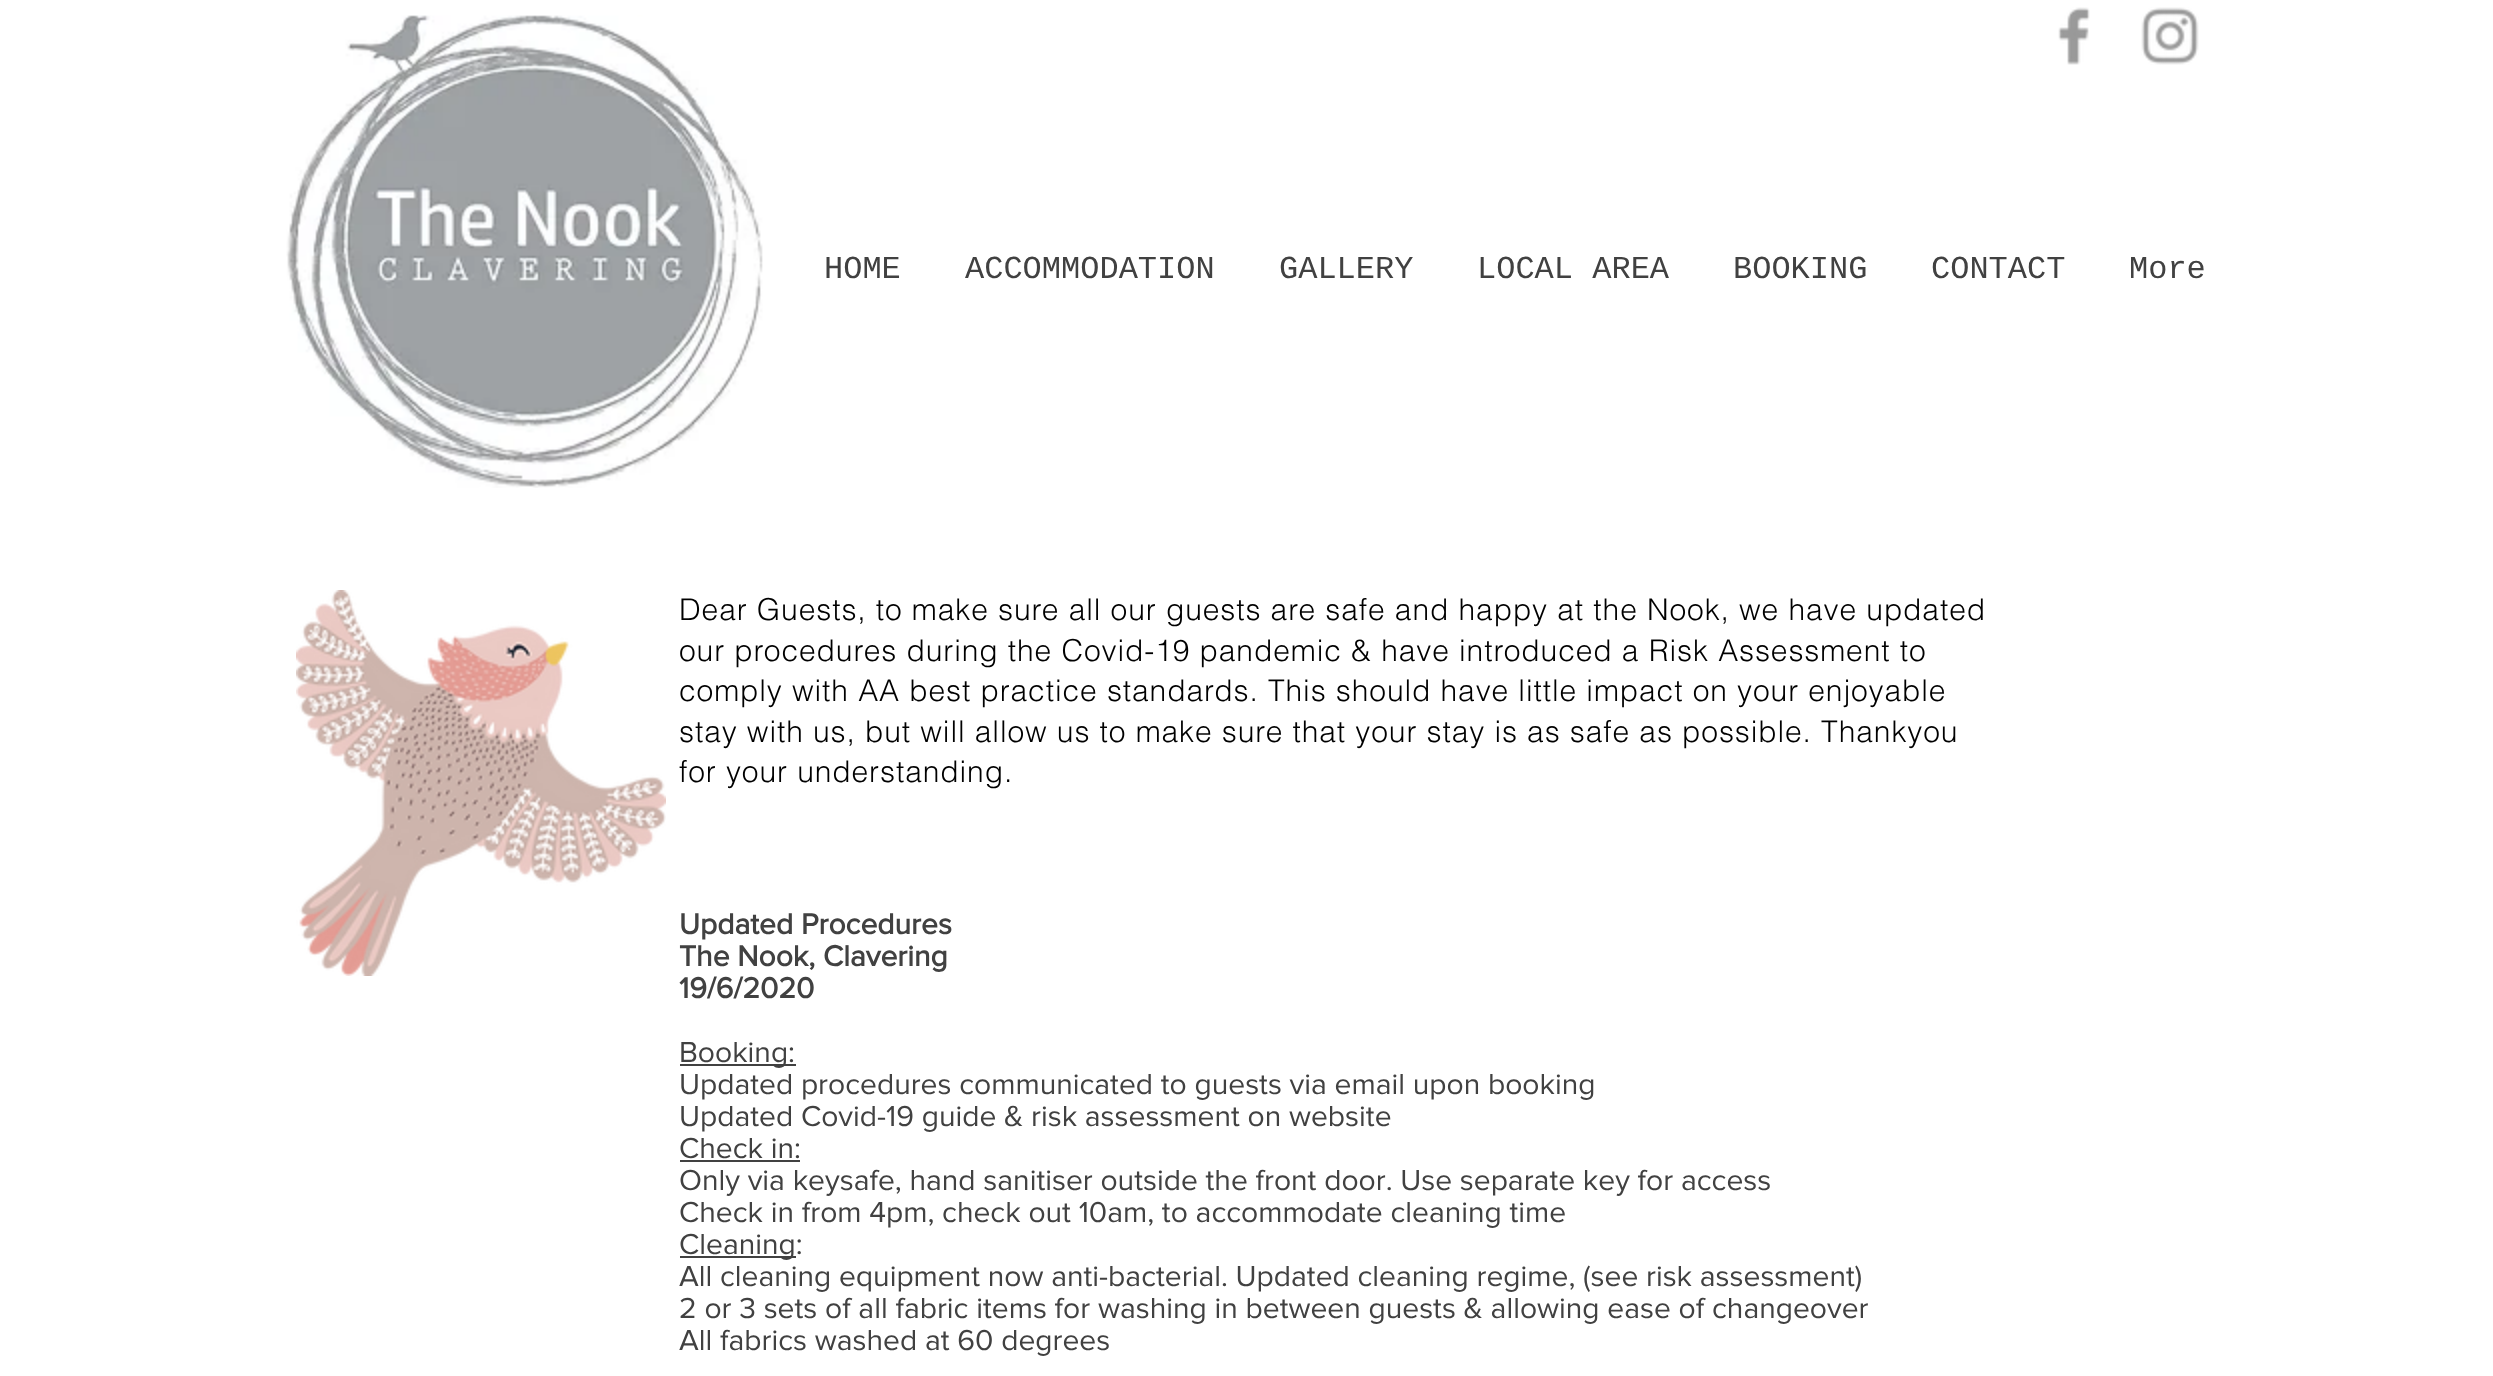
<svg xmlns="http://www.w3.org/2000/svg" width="2493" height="1376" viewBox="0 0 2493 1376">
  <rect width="100%" height="100%" fill="#ffffff"/>
  <image x="286" y="15" width="477" height="473" href="img1.png"/>
  <image x="2058" y="7" width="32" height="58" href="img2.png"/>
  <image x="2141" y="7" width="58" height="58" href="img3.png"/>
  <text x="824" y="278" font-family="Liberation Mono" font-size="32" fill="#414141">HOME</text>
  <text x="965" y="278" font-family="Liberation Mono" font-size="32" fill="#414141">ACCOMMODATION</text>
  <text x="1279" y="278" font-family="Liberation Mono" font-size="32" fill="#414141">GALLERY</text>
  <text x="1477" y="278" font-family="Liberation Mono" font-size="32" fill="#414141">LOCAL AREA</text>
  <text x="1733" y="278" font-family="Liberation Mono" font-size="32" fill="#414141">BOOKING</text>
  <text x="1931" y="278" font-family="Liberation Mono" font-size="32" fill="#414141">CONTACT</text>
  <text x="2129" y="278" font-family="Liberation Mono" font-size="32" fill="#414141">More</text>
  <image x="296" y="590" width="370" height="386" href="img4.png"/>
  <text x="679" y="620" font-family="helvetica" font-size="30" font-weight="300" letter-spacing="0.9" fill="#000000">Dear Guests, to make sure all our guests are safe and happy at the Nook, we have updated</text>
  <text x="679" y="661" font-family="helvetica" font-size="30" font-weight="300" letter-spacing="0.9" fill="#000000">our procedures during the Covid-19 pandemic &amp; have introduced a Risk Assessment to</text>
  <text x="679" y="701" font-family="helvetica" font-size="30" font-weight="300" letter-spacing="0.9" fill="#000000">comply with AA best practice standards. This should have little impact on your enjoyable</text>
  <text x="679" y="742" font-family="helvetica" font-size="30" font-weight="300" letter-spacing="0.9" fill="#000000">stay with us, but will allow us to make sure that your stay is as safe as possible. Thankyou</text>
  <text x="679" y="782" font-family="helvetica" font-size="30" font-weight="300" letter-spacing="0.9" fill="#000000">for your understanding.</text>
  <text x="679" y="934" font-family="'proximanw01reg'" font-size="30" font-weight="bold" fill="#414141">Updated Procedures</text>
  <text x="679" y="966" font-family="'proximanw01reg'" font-size="30" font-weight="bold" fill="#414141">The Nook, Clavering</text>
  <text x="679" y="998" font-family="'proximanw01reg'" font-size="30" font-weight="bold" fill="#414141">19/6/2020</text>
  <rect x="680" y="1064" width="116" height="2" fill="#414141"/>
  <text x="679" y="1062" font-family="'proximanw01reg'" font-size="30" fill="#414141">Booking:</text>
  <text x="679" y="1094" font-family="'proximanw01reg'" font-size="30" fill="#414141">Updated procedures communicated to guests via email upon booking</text>
  <text x="679" y="1126" font-family="'proximanw01reg'" font-size="30" fill="#414141">Updated Covid-19 guide &amp; risk assessment on website</text>
  <text x="679" y="1158" font-family="'proximanw01reg'" font-size="30" fill="#414141">Check in:</text>
  <rect x="680" y="1160" width="120" height="2" fill="#414141"/>
  <text x="679" y="1190" font-family="'proximanw01reg'" font-size="30" fill="#414141">Only via keysafe, hand sanitiser outside the front door. Use separate key for access</text>
  <text x="679" y="1222" font-family="'proximanw01reg'" font-size="30" fill="#414141">Check in from 4pm, check out 10am, to accommodate cleaning time</text>
  <rect x="680" y="1256" width="116" height="2" fill="#414141"/>
  <text x="679" y="1254" font-family="'proximanw01reg'" font-size="30" fill="#414141">Cleaning:</text>
  <text x="679" y="1286" font-family="'proximanw01reg'" font-size="30" fill="#414141">All cleaning equipment now anti-bacterial. Updated cleaning regime, (see risk assessment)</text>
  <text x="679" y="1318" font-family="'proximanw01reg'" font-size="30" fill="#414141">2 or 3 sets of all fabric items for washing in between guests &amp; allowing ease of changeover</text>
  <text x="679" y="1350" font-family="'proximanw01reg'" font-size="30" fill="#414141">All fabrics washed at 60 degrees</text>
</svg>
